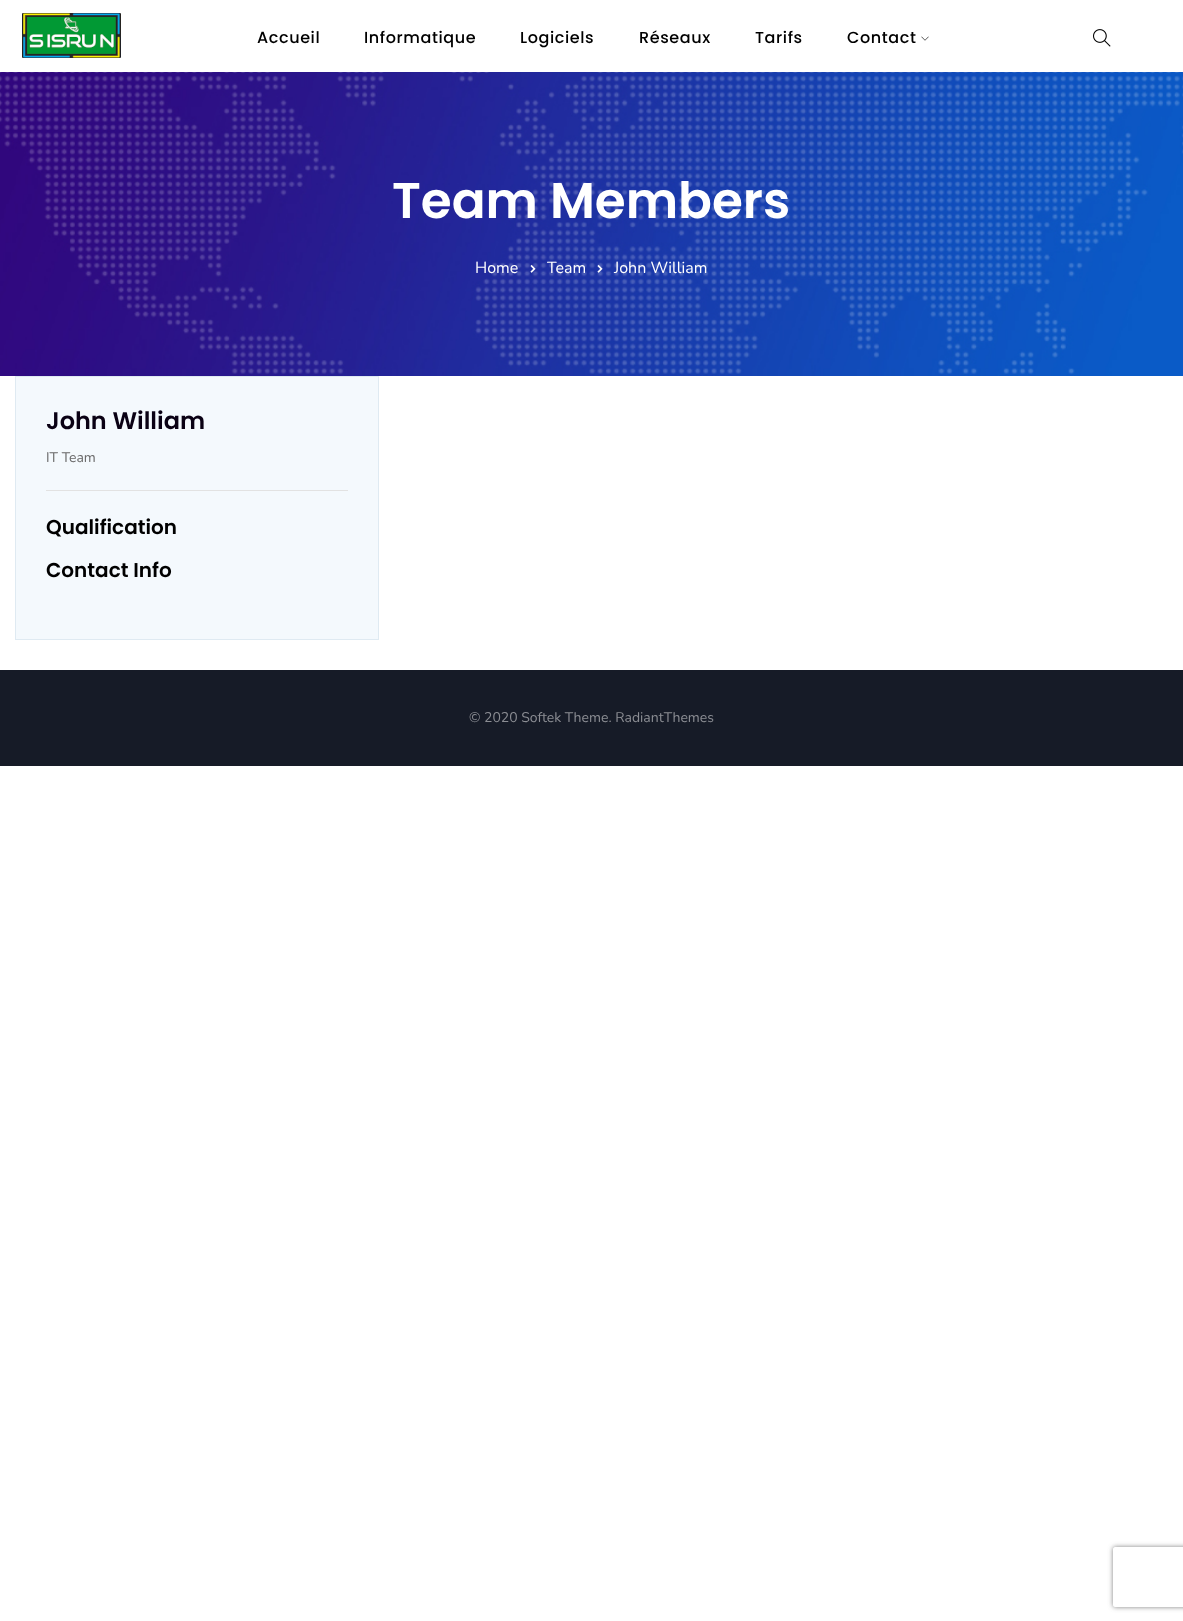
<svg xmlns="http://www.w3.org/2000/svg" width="1183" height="1621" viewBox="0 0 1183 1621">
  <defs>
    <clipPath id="clip1"><path d="M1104 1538H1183V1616H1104ZM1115 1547H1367C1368 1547 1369 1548 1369 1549V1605C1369 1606 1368 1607 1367 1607H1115C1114 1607 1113 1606 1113 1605V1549C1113 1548 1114 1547 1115 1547Z" clip-rule="evenodd"/></clipPath>
    <filter id="blur1" x="-50%" y="-200%" width="200%" height="500%"><feGaussianBlur stdDeviation="2.5"/></filter>
  </defs>
  <rect width="100%" height="100%" fill="#ffffff"/>
  <image x="22" y="13" width="99" height="45" href="img1.png"/>
  <text x="257" y="43" font-family="Poppins" font-size="16" font-weight="500" letter-spacing="0.6" fill="#000000">Accueil</text>
  <text x="364" y="43" font-family="Poppins" font-size="16" font-weight="500" letter-spacing="0.6" fill="#000000">Informatique</text>
  <text x="520" y="43" font-family="Poppins" font-size="16" font-weight="500" letter-spacing="0.6" fill="#000000">Logiciels</text>
  <text x="639" y="43" font-family="Poppins" font-size="16" font-weight="500" letter-spacing="0.6" fill="#000000">Réseaux</text>
  <text x="755" y="43" font-family="Poppins" font-size="16" font-weight="500" letter-spacing="0.6" fill="#000000">Tarifs</text>
  <text x="847" y="43" font-family="Poppins" font-size="16" font-weight="500" letter-spacing="0.6" fill="#000000">Contact</text>
  <image x="921" y="36" width="8" height="5" href="img2.png"/>
  <image x="1093" y="29" width="18" height="18" href="img3.png"/>
  <image x="0" y="72" width="1183" height="304" href="img4.png"/>
  <text x="392" y="218" font-family="Poppins" font-size="50" font-weight="600" fill="#ffffff">Team Members</text>
  <text x="475" y="273" font-family="Nunito" font-size="16" fill="#ffffff">Home</text>
  <image x="530" y="264" width="6" height="9" href="img5.png"/>
  <text x="547" y="273" font-family="Nunito" font-size="16" fill="#ffffff">Team</text>
  <image x="597" y="264" width="6" height="9" href="img6.png"/>
  <text x="614" y="273" font-family="Nunito" font-size="16" fill="#ffffff">John William</text>
  <rect x="15.5" y="376.5" width="363" height="263" fill="#f4f9fd" stroke="#dfeaf2"/>
  <text x="46" y="429" font-family="Poppins" font-size="24" font-weight="600" fill="#0a0114">John William</text>
  <text x="46" y="462" font-family="Nunito" font-size="14" fill="#696969">IT Team</text>
  <rect x="46" y="490" width="302" height="1" fill="#e2e2e2"/>
  <text x="46" y="534" font-family="Poppins" font-size="20" font-weight="600" fill="#000000">Qualification</text>
  <text x="46" y="577" font-family="Poppins" font-size="20" font-weight="600" fill="#000000">Contact Info</text>
  <rect x="0" y="670" width="1183" height="96" fill="#161b27"/>
  <text x="469" y="722" font-family="Nunito" font-size="14" fill="#8b8d93">© 2020 Softek Theme. RadiantThemes</text>
  <g clip-path="url(#clip1)">
    <rect x="1113" y="1547" width="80" height="60" rx="2" fill="#808080" filter="url(#blur1)"/>
  </g>
</svg>
